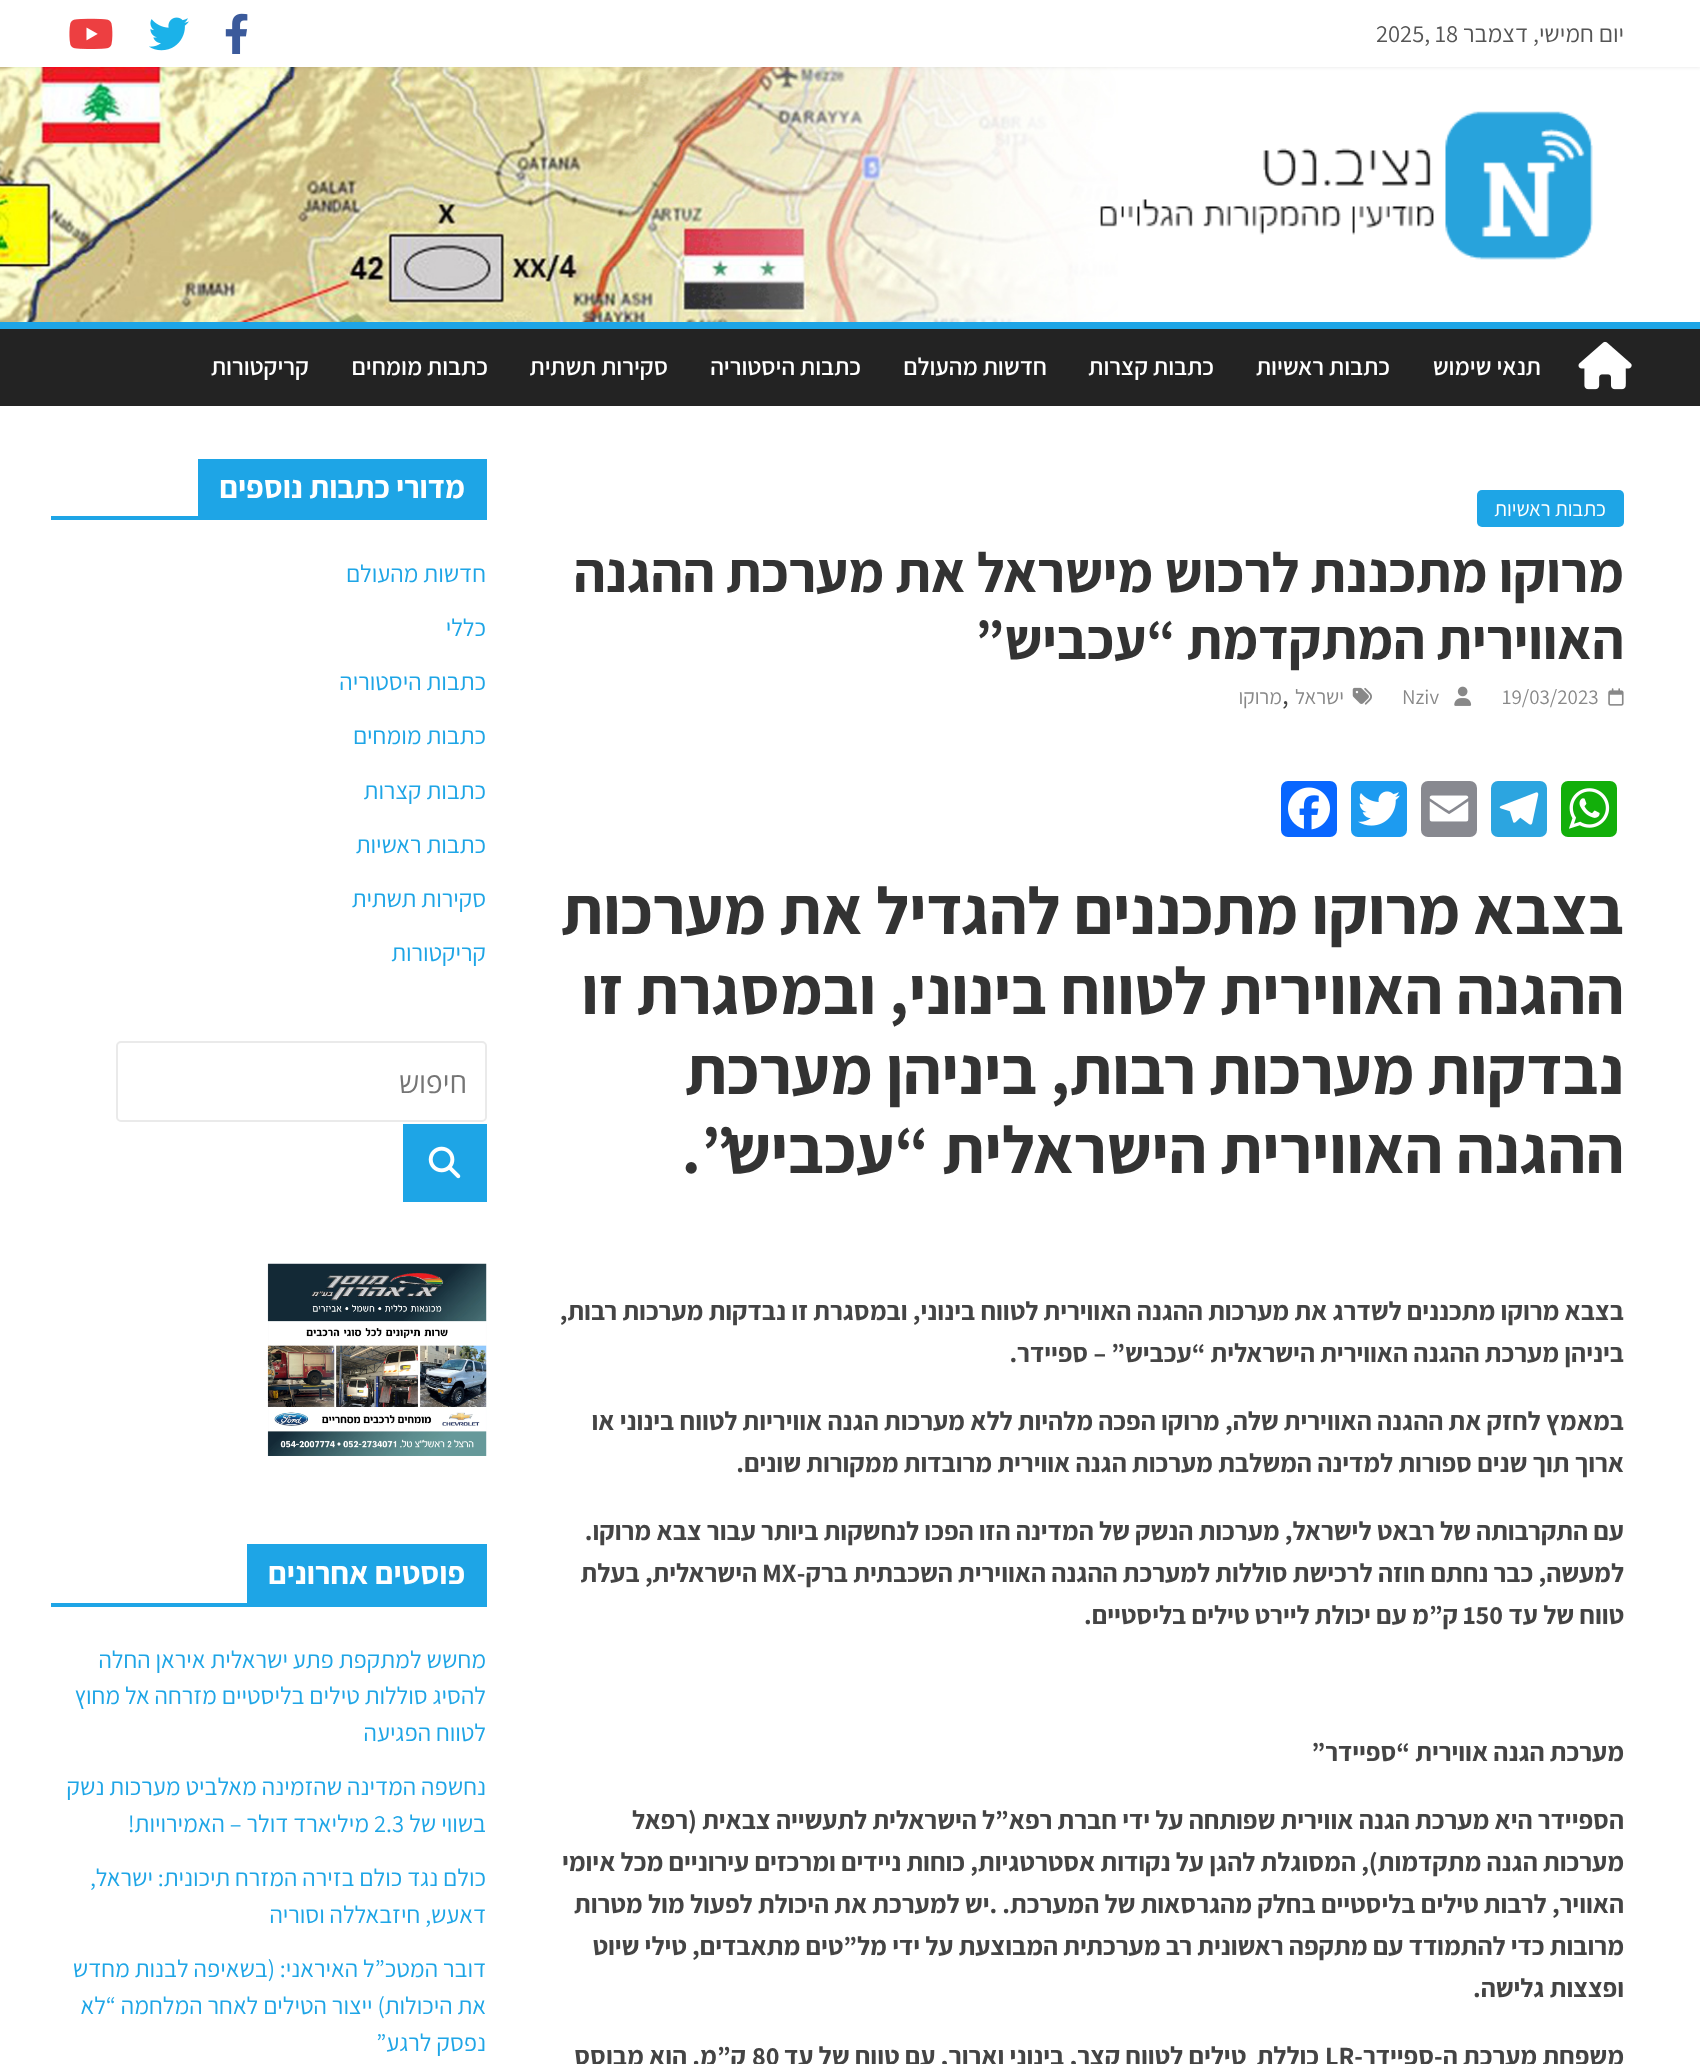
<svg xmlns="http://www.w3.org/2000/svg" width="1700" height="2064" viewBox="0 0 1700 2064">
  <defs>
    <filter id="blur1" x="-50%" y="-200%" width="200%" height="500%"><feGaussianBlur stdDeviation="2"/></filter>
  </defs>
  <rect width="100%" height="100%" fill="#ffffff"/>
  <image x="0" y="67" width="1118" height="255" href="img1.png"/>
  <rect x="0" y="0" width="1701" height="67" fill="#000000" fill-opacity="0.1" filter="url(#blur1)"/>
  <rect x="0" y="0" width="1700" height="67" fill="#ffffff"/>
  <text x="1624" y="42" font-family="Assistant" font-size="24.5" direction="rtl" fill="#555555">יום חמישי, דצמבר</text>
  <text x="1376" y="42" font-family="Assistant" font-size="24.5" fill="#555555">2025, 18</text>
  <image x="225" y="13" width="23" height="41" href="img2.png"/>
  <image x="149" y="17" width="40" height="34" href="img3.png"/>
  <image x="69" y="18" width="44" height="31" href="img4.png"/>
  <image x="1100" y="111" width="493" height="149" href="img5.png"/>
  <rect x="0" y="329" width="1700" height="77" fill="#232323"/>
  <rect x="0" y="322" width="1700" height="7" fill="#1ea5e6"/>
  <image x="1578" y="341" width="54" height="49" href="img6.png"/>
  <text x="1541" y="375" font-family="Assistant" font-size="24.5" font-weight="600" direction="rtl" fill="#ffffff">תנאי שימוש</text>
  <text x="1390" y="375" font-family="Assistant" font-size="24.5" font-weight="600" direction="rtl" fill="#ffffff">כתבות ראשיות</text>
  <text x="1214" y="375" font-family="Assistant" font-size="24.5" font-weight="600" direction="rtl" fill="#ffffff">כתבות קצרות</text>
  <text x="1047" y="375" font-family="Assistant" font-size="24.5" font-weight="600" direction="rtl" fill="#ffffff">חדשות מהעולם</text>
  <text x="861" y="375" font-family="Assistant" font-size="24.5" font-weight="600" direction="rtl" fill="#ffffff">כתבות היסטוריה</text>
  <text x="668" y="375" font-family="Assistant" font-size="24.5" font-weight="600" direction="rtl" fill="#ffffff">סקירות תשתית</text>
  <text x="488" y="375" font-family="Assistant" font-size="24.5" font-weight="600" direction="rtl" fill="#ffffff">כתבות מומחים</text>
  <text x="309" y="375" font-family="Assistant" font-size="24.5" font-weight="600" direction="rtl" fill="#ffffff">קריקטורות</text>
  <rect x="1477" y="490" width="147" height="37" rx="5" fill="#1ea5e6"/>
  <text x="1606" y="516" font-family="Assistant" font-size="21" direction="rtl" fill="#ffffff">כתבות ראשיות</text>
  <text x="1624" y="592" font-family="Assistant" font-size="56" font-weight="bold" direction="rtl" fill="#333333">מרוקו מתכננת לרכוש מישראל את מערכת ההגנה</text>
  <text x="1624" y="659" font-family="Assistant" font-size="56" font-weight="bold" direction="rtl" fill="#333333">האווירית המתקדמת “עכביש”</text>
  <image x="1608" y="688" width="16" height="18" href="img7.png"/>
  <text x="1502" y="704" font-family="Assistant" font-size="21" fill="#888888">19/03/2023</text>
  <image x="1454" y="686" width="18" height="20" href="img8.png"/>
  <text x="1402" y="704" font-family="Assistant" font-size="21" fill="#888888">Nziv</text>
  <image x="1352" y="687" width="20" height="18" href="img9.png"/>
  <text x="1344" y="704" font-family="Assistant" font-size="21" direction="rtl" fill="#888888">ישראל</text>
  <text x="1282" y="704" font-family="Assistant" font-size="28" fill="#444444">,</text>
  <text x="1282" y="704" font-family="Assistant" font-size="21" direction="rtl" fill="#888888">מרוקו</text>
  <rect x="1561" y="781" width="56" height="56" rx="7" fill="#12af0a"/>
  <image x="1569" y="788" width="41" height="41" href="img10.png"/>
  <rect x="1491" y="781" width="56" height="56" rx="7" fill="#2ca5e0"/>
  <image x="1499" y="792" width="40" height="33" href="img11.png"/>
  <rect x="1421" y="781" width="56" height="56" rx="7" fill="#888990"/>
  <image x="1429" y="795" width="40" height="27" href="img12.png"/>
  <rect x="1351" y="781" width="56" height="56" rx="7" fill="#1d9bf0"/>
  <image x="1358" y="791" width="42" height="35" href="img13.png"/>
  <rect x="1281" y="781" width="56" height="56" rx="7" fill="#0866ff"/>
  <image x="1288" y="787" width="42" height="43" href="img14.png"/>
  <text x="1624" y="934" font-family="Assistant" font-size="66.5" font-weight="bold" direction="rtl" fill="#333333">בצבא מרוקו מתכננים להגדיל את מערכות</text>
  <text x="1624" y="1014" font-family="Assistant" font-size="66.5" font-weight="bold" direction="rtl" fill="#333333">ההגנה האווירית לטווח בינוני, ובמסגרת זו</text>
  <text x="1624" y="1094" font-family="Assistant" font-size="66.5" font-weight="bold" direction="rtl" fill="#333333">נבדקות מערכות רבות, ביניהן מערכת</text>
  <text x="1624" y="1173" font-family="Assistant" font-size="66.5" font-weight="bold" direction="rtl" fill="#333333">ההגנה האווירית הישראלית “עכביש”.</text>
  <text x="1624" y="1320" font-family="Assistant" font-size="26.25" font-weight="bold" direction="rtl" fill="#444444">בצבא מרוקו מתכננים לשדרג את מערכות ההגנה האווירית לטווח בינוני, ובמסגרת זו נבדקות מערכות רבות,</text>
  <text x="1624" y="1362" font-family="Assistant" font-size="26.25" font-weight="bold" direction="rtl" fill="#444444">ביניהן מערכת ההגנה האווירית הישראלית “עכביש” – ספיידר.</text>
  <text x="1624" y="1430" font-family="Assistant" font-size="26.25" font-weight="bold" direction="rtl" fill="#444444">במאמץ לחזק את ההגנה האווירית שלה, מרוקו הפכה מלהיות ללא מערכות הגנה אוויריות לטווח בינוני או</text>
  <text x="1624" y="1472" font-family="Assistant" font-size="26.25" font-weight="bold" direction="rtl" fill="#444444">ארוך תוך שנים ספורות למדינה המשלבת מערכות הגנה אווירית מרובדות ממקורות שונים.</text>
  <text x="1624" y="1540" font-family="Assistant" font-size="26.25" font-weight="bold" direction="rtl" fill="#444444">עם התקרבותה של רבאט לישראל, מערכות הנשק של המדינה הזו הפכו לנחשקות ביותר עבור צבא מרוקו.</text>
  <text x="1624" y="1582" font-family="Assistant" font-size="26.25" font-weight="bold" direction="rtl" fill="#444444">למעשה, כבר נחתם חוזה לרכישת סוללות למערכת ההגנה האווירית השכבתית ברק-</text>
  <text x="762" y="1582" font-family="Assistant" font-size="26.25" font-weight="bold" fill="#444444">MX</text>
  <text x="757" y="1582" font-family="Assistant" font-size="26.25" font-weight="bold" direction="rtl" fill="#444444">הישראלית, בעלת</text>
  <text x="1624" y="1624" font-family="Assistant" font-size="26.25" font-weight="bold" direction="rtl" fill="#444444">טווח של עד</text>
  <text x="1463" y="1624" font-family="Assistant" font-size="26.25" font-weight="bold" fill="#444444">150</text>
  <text x="1458" y="1624" font-family="Assistant" font-size="26.25" font-weight="bold" direction="rtl" fill="#444444">ק”מ עם יכולת ליירט טילים בליסטיים.</text>
  <text x="1624" y="1761" font-family="Assistant" font-size="26.25" font-weight="bold" direction="rtl" fill="#444444">מערכת הגנה אווירית “ספיידר”</text>
  <text x="1624" y="1829" font-family="Assistant" font-size="26.25" font-weight="bold" direction="rtl" fill="#444444">הספיידר היא מערכת הגנה אווירית שפותחה על ידי חברת רפא”ל הישראלית לתעשייה צבאית (רפאל</text>
  <text x="1624" y="1871" font-family="Assistant" font-size="26.25" font-weight="bold" direction="rtl" fill="#444444">מערכות הגנה מתקדמות), המסוגלת להגן על נקודות אסטרטגיות, כוחות ניידים ומרכזים עירוניים מכל איומי</text>
  <text x="1624" y="1913" font-family="Assistant" font-size="26.25" font-weight="bold" direction="rtl" fill="#444444">האוויר, לרבות טילים בליסטיים בחלק מהגרסאות של המערכת. .יש למערכת את היכולת לפעול מול מטרות</text>
  <text x="1624" y="1955" font-family="Assistant" font-size="26.25" font-weight="bold" direction="rtl" fill="#444444">מרובות כדי להתמודד עם מתקפה ראשונית רב מערכתית המבוצעת על ידי מל”טים מתאבדים, טילי שיוט</text>
  <text x="1624" y="1997" font-family="Assistant" font-size="26.25" font-weight="bold" direction="rtl" fill="#444444">ופצצות גלישה.</text>
  <text x="1624" y="2065" font-family="Assistant" font-size="26.25" font-weight="bold" direction="rtl" fill="#444444">משפחת מערכת ה-ספיידר-</text>
  <text x="1325" y="2065" font-family="Assistant" font-size="26.25" font-weight="bold" fill="#444444">LR</text>
  <text x="1319" y="2065" font-family="Assistant" font-size="26.25" font-weight="bold" direction="rtl" fill="#444444" xml:space="preserve">כוללת  טילים לטווח קצר, בינוני וארוך, עם טווח של עד</text>
  <text x="752" y="2065" font-family="Assistant" font-size="26.25" font-weight="bold" fill="#444444">80</text>
  <text x="746" y="2065" font-family="Assistant" font-size="26.25" font-weight="bold" direction="rtl" fill="#444444">ק”מ. הוא מבוסס</text>
  <rect x="51" y="516" width="436" height="4" fill="#1ea5e6"/>
  <rect x="198" y="459" width="289" height="57" fill="#1ea5e6"/>
  <text x="465" y="498" font-family="Assistant" font-size="31.5" font-weight="bold" direction="rtl" fill="#ffffff">מדורי כתבות נוספים</text>
  <text x="486" y="582" font-family="Assistant" font-size="24.5" direction="rtl" fill="#1ea5e6">חדשות מהעולם</text>
  <text x="486" y="636" font-family="Assistant" font-size="24.5" direction="rtl" fill="#1ea5e6">כללי</text>
  <text x="486" y="690" font-family="Assistant" font-size="24.5" direction="rtl" fill="#1ea5e6">כתבות היסטוריה</text>
  <text x="486" y="744" font-family="Assistant" font-size="24.5" direction="rtl" fill="#1ea5e6">כתבות מומחים</text>
  <text x="486" y="799" font-family="Assistant" font-size="24.5" direction="rtl" fill="#1ea5e6">כתבות קצרות</text>
  <text x="486" y="853" font-family="Assistant" font-size="24.5" direction="rtl" fill="#1ea5e6">כתבות ראשיות</text>
  <text x="486" y="907" font-family="Assistant" font-size="24.5" direction="rtl" fill="#1ea5e6">סקירות תשתית</text>
  <text x="486" y="961" font-family="Assistant" font-size="24.5" direction="rtl" fill="#1ea5e6">קריקטורות</text>
  <rect x="117" y="1042" width="369" height="79" rx="4" fill="none" stroke="#eaeaea" stroke-width="2"/>
  <text x="467" y="1093" font-family="Open Sans" font-size="28" direction="rtl" fill="#757575">חיפוש</text>
  <rect x="403" y="1124" width="84" height="78" fill="#1ea5e6"/>
  <image x="428" y="1146" width="33" height="33" href="img15.png"/>
  <image x="267" y="1263" width="220" height="193" href="img16.png"/>
  <rect x="51" y="1603" width="436" height="4" fill="#1ea5e6"/>
  <rect x="247" y="1544" width="240" height="59" fill="#1ea5e6"/>
  <text x="465" y="1584" font-family="Assistant" font-size="31.5" font-weight="bold" direction="rtl" fill="#ffffff">פוסטים אחרונים</text>
  <text x="486" y="1668" font-family="Assistant" font-size="24.5" direction="rtl" fill="#1ea5e6">מחשש למתקפת פתע ישראלית איראן החלה</text>
  <text x="486" y="1704" font-family="Assistant" font-size="24.5" direction="rtl" fill="#1ea5e6">להסיג סוללות טילים בליסטיים מזרחה אל מחוץ</text>
  <text x="486" y="1741" font-family="Assistant" font-size="24.5" direction="rtl" fill="#1ea5e6">לטווח הפגיעה</text>
  <text x="486" y="1795" font-family="Assistant" font-size="24.5" direction="rtl" fill="#1ea5e6">נחשפה המדינה שהזמינה מאלביט מערכות נשק</text>
  <text x="486" y="1832" font-family="Assistant" font-size="24.5" direction="rtl" fill="#1ea5e6">בשווי של</text>
  <text x="374" y="1832" font-family="Assistant" font-size="24.5" fill="#1ea5e6">2.3</text>
  <text x="369" y="1832" font-family="Assistant" font-size="24.5" direction="rtl" fill="#1ea5e6">מיליארד דולר – האמירויות!</text>
  <text x="486" y="1886" font-family="Assistant" font-size="24.5" direction="rtl" fill="#1ea5e6">כולם נגד כולם בזירה המזרח תיכונית: ישראל,</text>
  <text x="486" y="1923" font-family="Assistant" font-size="24.5" direction="rtl" fill="#1ea5e6">דאעש, חיזבאללה וסוריה</text>
  <text x="486" y="1977" font-family="Assistant" font-size="24.5" direction="rtl" fill="#1ea5e6">דובר המטכ”ל האיראני: (בשאיפה לבנות מחדש</text>
  <text x="486" y="2014" font-family="Assistant" font-size="24.5" direction="rtl" fill="#1ea5e6">את היכולות) ייצור הטילים לאחר המלחמה “לא</text>
  <text x="486" y="2051" font-family="Assistant" font-size="24.5" direction="rtl" fill="#1ea5e6">נפסק לרגע”</text>
</svg>
